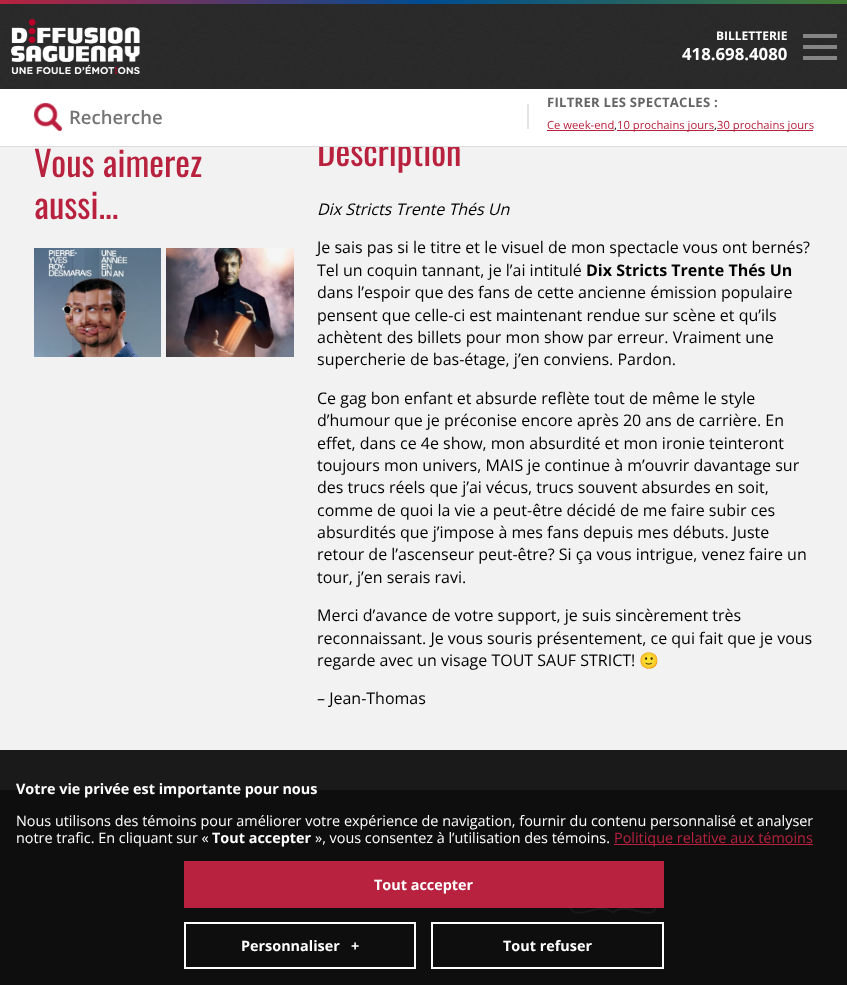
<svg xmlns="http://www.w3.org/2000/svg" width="847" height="985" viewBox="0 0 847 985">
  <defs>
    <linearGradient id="g1" gradientUnits="userSpaceOnUse" x1="0" y1="2" x2="847" y2="2"><stop offset="0" stop-color="#b8223e"/><stop offset="0.5" stop-color="#004c92"/><stop offset="1" stop-color="#457b36"/></linearGradient>
  </defs>
  <rect width="100%" height="100%" fill="#f2f2f2"/>
  <rect x="0" y="750" width="847" height="40" fill="#1a1a1b"/>
  <rect x="0" y="0" width="847" height="4" fill="url(#g1)"/>
  <image x="0" y="4" width="847" height="85" href="img1.png"/>
  <image x="11" y="19" width="129" height="55" href="img2.png"/>
  <text x="716" y="40" font-family="Open Sans" font-size="12" font-weight="bold" fill="#ffffff">BILLETTERIE</text>
  <text x="682" y="60" font-family="Open Sans" font-size="16.75" font-weight="bold" fill="#ffffff">418.698.4080</text>
  <rect x="803" y="34" width="34" height="4" fill="#858585"/>
  <rect x="803" y="45" width="34" height="4" fill="#858585"/>
  <rect x="803" y="56" width="34" height="4" fill="#858585"/>
  <text x="317" y="166" font-family="Oswald" font-size="35" fill="#b8223e">Description</text>
  <rect x="0" y="89" width="847" height="57" fill="#ffffff"/>
  <rect x="0" y="146" width="847" height="1" fill="#dcdcdc"/>
  <image x="33" y="102" width="29" height="29" href="img3.png"/>
  <text x="69" y="124" font-family="Open Sans" font-size="18.5" font-weight="600" fill="#757575">Recherche</text>
  <text x="547" y="107" font-family="Open Sans" font-size="13.1" font-weight="bold" letter-spacing="0.25" fill="#656565">FILTRER LES SPECTACLES :</text>
  <rect x="527" y="104" width="2" height="25" fill="#e3e3e3"/>
  <text x="547" y="129" font-family="Open Sans" font-size="11.25" fill="#b8223e">Ce week-end</text>
  <rect x="547" y="130" width="67" height="1" fill="#b8223e"/>
  <text x="614" y="129" font-family="Open Sans" font-size="11.25" fill="#000000">,</text>
  <rect x="617" y="130" width="97" height="1" fill="#b8223e"/>
  <text x="617" y="129" font-family="Open Sans" font-size="11.25" fill="#b8223e">10 prochains jours</text>
  <text x="714" y="129" font-family="Open Sans" font-size="11.25" fill="#000000">,</text>
  <rect x="717" y="130" width="96" height="1" fill="#b8223e"/>
  <text x="717" y="129" font-family="Open Sans" font-size="11.25" fill="#b8223e">30 prochains jours</text>
  <text x="34" y="177" font-family="Oswald" font-size="35" fill="#b8223e">Vous aimerez</text>
  <text x="34" y="219" font-family="Oswald" font-size="35" fill="#b8223e">aussi...</text>
  <image x="34" y="248" width="127" height="109" href="img4.png"/>
  <image x="166" y="248" width="128" height="109" href="img5.png"/>
  <text x="317" y="215" font-family="Open Sans" font-size="16" font-style="italic" fill="#000000">Dix Stricts Trente Thés Un</text>
  <text x="317" y="253" font-family="Open Sans" font-size="16" fill="#000000">Je sais pas si le titre et le visuel de mon spectacle vous ont bernés?</text>
  <text x="317" y="276" font-family="Open Sans" font-size="16" fill="#000000">Tel un coquin tannant, je l’ai intitulé</text>
  <text x="586" y="276" font-family="Open Sans" font-size="16" font-weight="bold" fill="#000000">Dix Stricts Trente Thés Un</text>
  <text x="317" y="298" font-family="Open Sans" font-size="16" fill="#000000">dans l’espoir que des fans de cette ancienne émission populaire</text>
  <text x="317" y="321" font-family="Open Sans" font-size="16" fill="#000000">pensent que celle-ci est maintenant rendue sur scène et qu’ils</text>
  <text x="317" y="343" font-family="Open Sans" font-size="16" fill="#000000">achètent des billets pour mon show par erreur. Vraiment une</text>
  <text x="317" y="365" font-family="Open Sans" font-size="16" fill="#000000">supercherie de bas-étage, j’en conviens. Pardon.</text>
  <text x="317" y="404" font-family="Open Sans" font-size="16" fill="#000000">Ce gag bon enfant et absurde reflète tout de même le style</text>
  <text x="317" y="426" font-family="Open Sans" font-size="16" fill="#000000">d’humour que je préconise encore après 20 ans de carrière. En</text>
  <text x="317" y="449" font-family="Open Sans" font-size="16" fill="#000000">effet, dans ce 4e show, mon absurdité et mon ironie teinteront</text>
  <text x="317" y="471" font-family="Open Sans" font-size="16" fill="#000000">toujours mon univers, MAIS je continue à m’ouvrir davantage sur</text>
  <text x="317" y="493" font-family="Open Sans" font-size="16" fill="#000000">des trucs réels que j’ai vécus, trucs souvent absurdes en soit,</text>
  <text x="317" y="516" font-family="Open Sans" font-size="16" fill="#000000">comme de quoi la vie a peut-être décidé de me faire subir ces</text>
  <text x="317" y="538" font-family="Open Sans" font-size="16" fill="#000000">absurdités que j’impose à mes fans depuis mes débuts. Juste</text>
  <text x="317" y="560" font-family="Open Sans" font-size="16" fill="#000000">retour de l’ascenseur peut-être? Si ça vous intrigue, venez faire un</text>
  <text x="317" y="583" font-family="Open Sans" font-size="16" fill="#000000">tour, j’en serais ravi.</text>
  <text x="317" y="621" font-family="Open Sans" font-size="16" fill="#000000">Merci d’avance de votre support, je suis sincèrement très</text>
  <text x="317" y="644" font-family="Open Sans" font-size="16" fill="#000000">reconnaissant. Je vous souris présentement, ce qui fait que je vous</text>
  <text x="317" y="666" font-family="Open Sans" font-size="16" fill="#000000">regarde avec un visage TOUT SAUF STRICT!</text>
  <text x="639" y="666" font-family="Noto Color Emoji" font-size="16" fill="#000000">🙂</text>
  <text x="317" y="704" font-family="Open Sans" font-size="16" fill="#000000">– Jean-Thomas</text>
  <rect x="0" y="790" width="847" height="195" fill="#0e0e0f"/>
  <image x="569" y="908" width="88" height="7" href="img6.png"/>
  <text x="16" y="794" font-family="Open Sans" font-size="14.4" font-weight="bold" fill="#ffffff">Votre vie privée est importante pour nous</text>
  <text x="16" y="826" font-family="Open Sans" font-size="14.4" fill="#ffffff">Nous utilisons des témoins pour améliorer votre expérience de navigation, fournir du contenu personnalisé et analyser</text>
  <text x="16" y="843" font-family="Open Sans" font-size="14.4" fill="#ffffff">notre trafic. En cliquant sur «</text>
  <text x="212" y="843" font-family="Open Sans" font-size="14.4" font-weight="bold" fill="#ffffff">Tout accepter</text>
  <text x="315" y="843" font-family="Open Sans" font-size="14.4" fill="#ffffff">», vous consentez à l’utilisation des témoins.</text>
  <rect x="614" y="844" width="199" height="1" fill="#b8223e"/>
  <text x="614" y="843" font-family="Open Sans" font-size="14.4" fill="#b8223e">Politique relative aux témoins</text>
  <rect x="184" y="861" width="480" height="47" fill="#b8223e"/>
  <text x="374" y="890" font-family="Open Sans" font-size="14.4" font-weight="bold" fill="#ffffff">Tout accepter</text>
  <rect x="185" y="923" width="230" height="45" fill="none" stroke="#ffffff" stroke-width="2"/>
  <text x="241" y="951" font-family="Open Sans" font-size="14.4" font-weight="bold" fill="#ffffff">Personnaliser</text>
  <text x="351" y="951" font-family="Open Sans" font-size="14.4" font-weight="bold" fill="#ffffff">+</text>
  <rect x="432" y="923" width="231" height="45" fill="none" stroke="#ffffff" stroke-width="2"/>
  <text x="503" y="951" font-family="Open Sans" font-size="14.4" font-weight="bold" fill="#ffffff">Tout refuser</text>
</svg>
